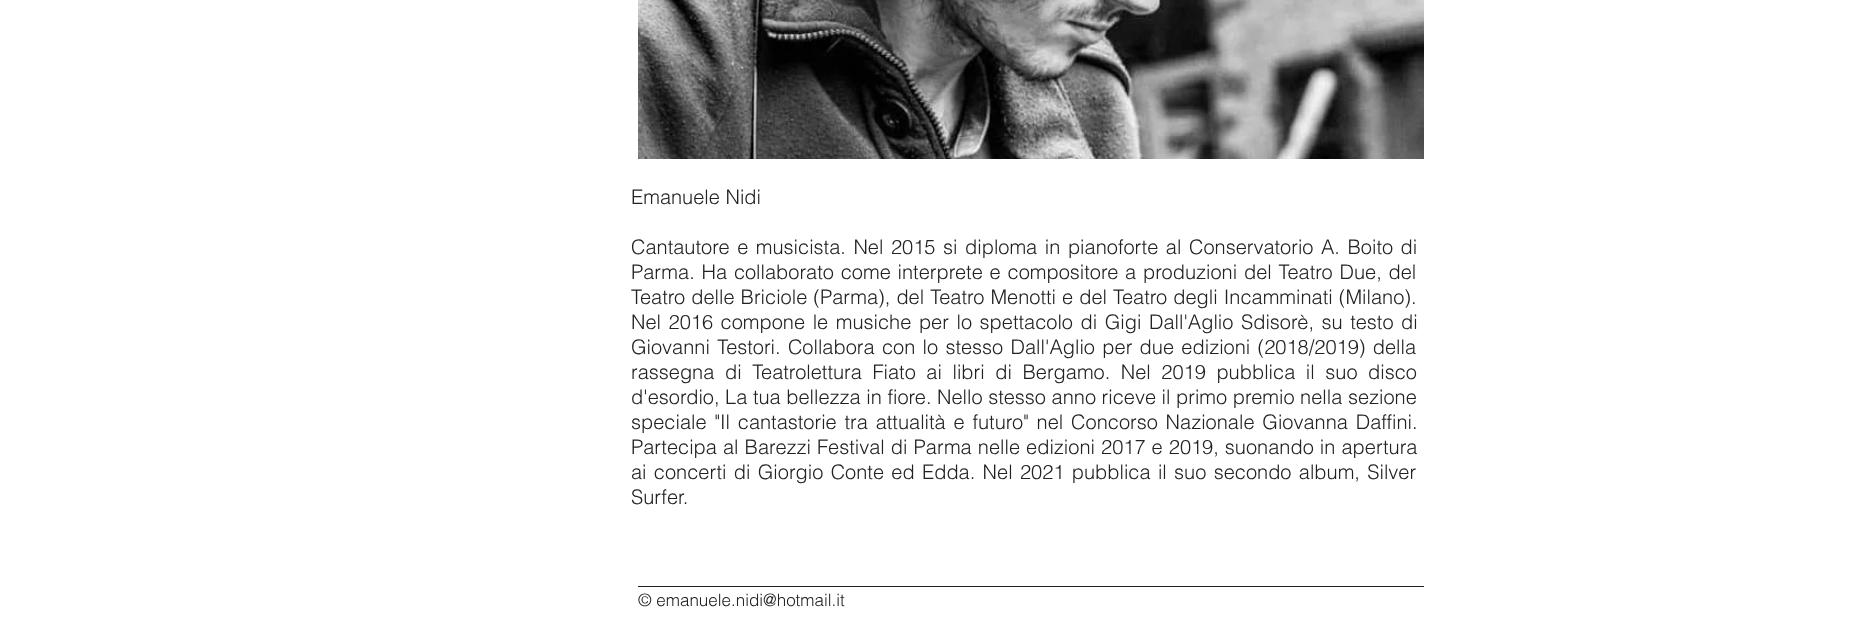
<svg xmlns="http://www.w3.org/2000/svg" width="1867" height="644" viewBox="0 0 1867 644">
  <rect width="100%" height="100%" fill="#ffffff"/>
  <image x="638" y="0" width="786" height="159" href="img1.png"/>
  <text x="631" y="204" font-family="helvetica" font-size="20" font-weight="300" fill="#222222">Emanuele Nidi</text>
  <text x="631" y="254" word-spacing="2" font-family="helvetica" font-size="20" font-weight="300" fill="#222222">Cantautore e musicista. Nel 2015 si diploma in pianoforte al Conservatorio A. Boito di</text>
  <text x="631" y="279" word-spacing="1.25" font-family="helvetica" font-size="20" font-weight="300" fill="#222222">Parma. Ha collaborato come interprete e compositore a produzioni del Teatro Due, del</text>
  <text x="631" y="304" word-spacing="0.5" font-family="helvetica" font-size="20" font-weight="300" fill="#222222">Teatro delle Briciole (Parma), del Teatro Menotti e del Teatro degli Incamminati (Milano).</text>
  <text x="631" y="329" word-spacing="2" font-family="helvetica" font-size="20" font-weight="300" fill="#222222">Nel 2016 compone le musiche per lo spettacolo di Gigi Dall'Aglio Sdisorè, su testo di</text>
  <text x="631" y="354" word-spacing="1.75" font-family="helvetica" font-size="20" font-weight="300" fill="#222222">Giovanni Testori. Collabora con lo stesso Dall'Aglio per due edizioni (2018/2019) della</text>
  <text x="631" y="379" word-spacing="5" font-family="helvetica" font-size="20" font-weight="300" fill="#222222">rassegna di Teatrolettura Fiato ai libri di Bergamo. Nel 2019 pubblica il suo disco</text>
  <text x="631" y="404" font-family="helvetica" font-size="20" font-weight="300" fill="#222222">d'esordio, La tua bellezza in fiore. Nello stesso anno riceve il primo premio nella sezione</text>
  <text x="631" y="429" word-spacing="2.25" font-family="helvetica" font-size="20" font-weight="300" fill="#222222">speciale "Il cantastorie tra attualità e futuro" nel Concorso Nazionale Giovanna Daffini.</text>
  <text x="631" y="454" word-spacing="0.5" font-family="helvetica" font-size="20" font-weight="300" fill="#222222">Partecipa al Barezzi Festival di Parma nelle edizioni 2017 e 2019, suonando in apertura</text>
  <text x="631" y="479" word-spacing="1.75" font-family="helvetica" font-size="20" font-weight="300" fill="#222222">ai concerti di Giorgio Conte ed Edda. Nel 2021 pubblica il suo secondo album, Silver</text>
  <text x="631" y="504" font-family="helvetica" font-size="20" font-weight="300" fill="#222222">Surfer.</text>
  <rect x="638" y="586" width="786" height="1" fill="#222222"/>
  <text x="638" y="606" font-family="helvetica" font-size="17" font-weight="300" fill="#222222">© emanuele.nidi@hotmail.it</text>
</svg>
